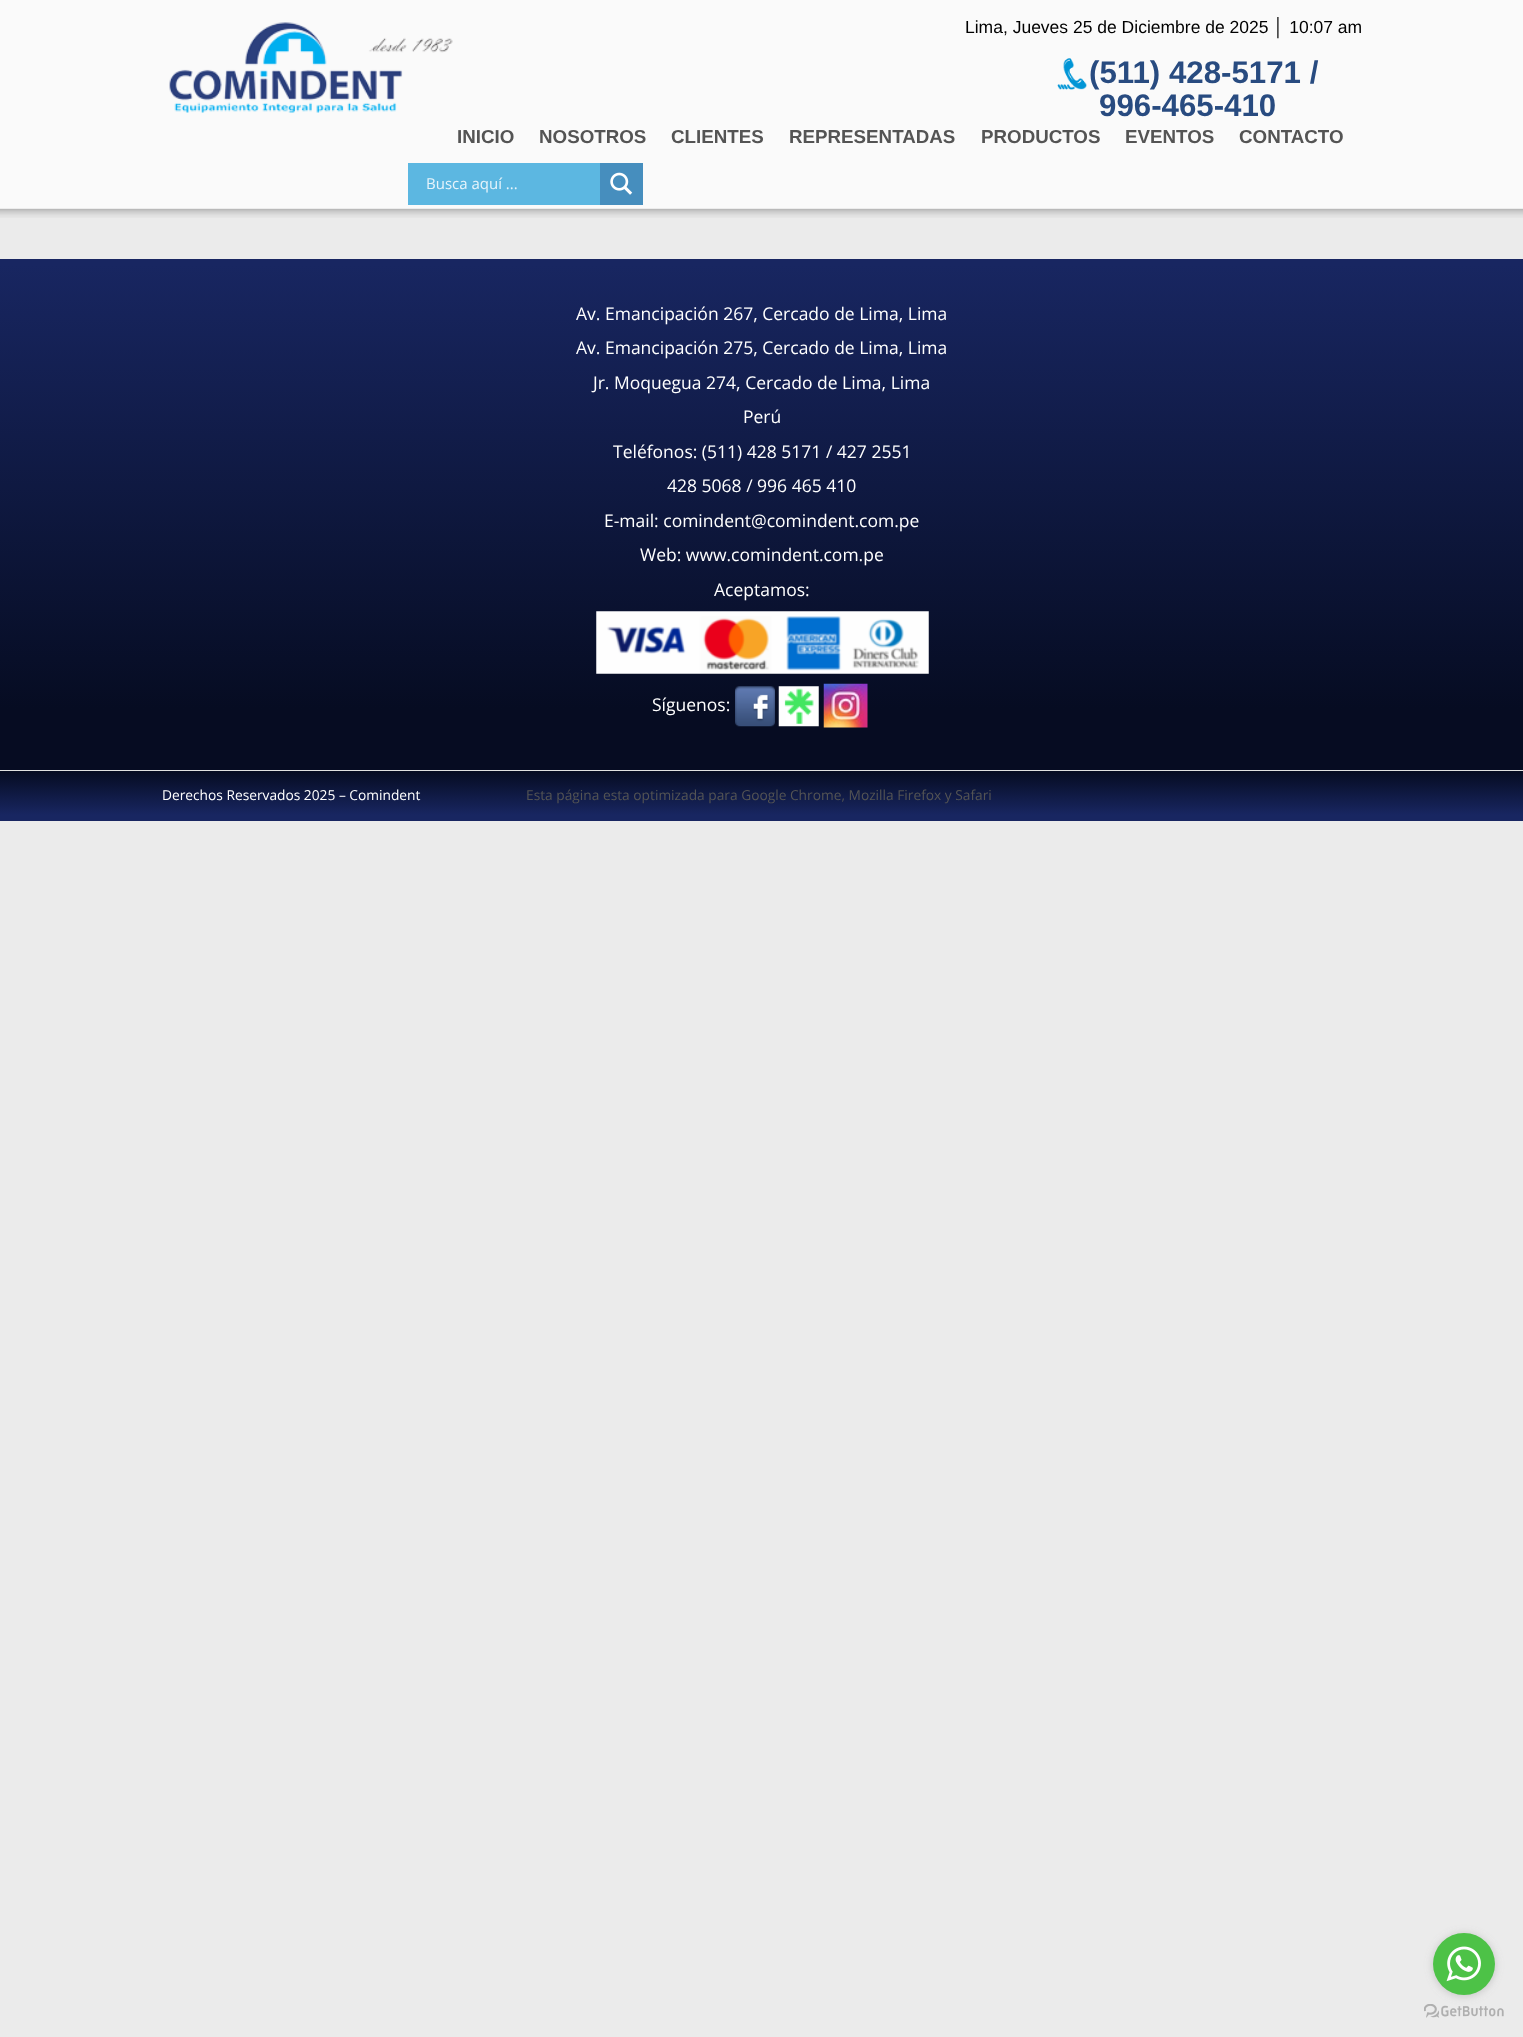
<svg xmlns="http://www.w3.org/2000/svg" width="1523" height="2037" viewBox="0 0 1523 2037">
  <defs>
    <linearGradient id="g1" gradientUnits="userSpaceOnUse" x1="762" y1="259" x2="762" y2="770"><stop offset="0.01" stop-color="#182661"/><stop offset="0.88" stop-color="#060c22"/></linearGradient>
    <linearGradient id="g2" gradientUnits="userSpaceOnUse" x1="762" y1="771" x2="762" y2="821"><stop offset="0.01" stop-color="#060c22"/><stop offset="0.88" stop-color="#182661"/></linearGradient>
    <filter id="blur1" x="-50%" y="-200%" width="200%" height="500%"><feGaussianBlur stdDeviation="4.5"/></filter>
  </defs>
  <rect width="100%" height="100%" fill="#ebebeb"/>
  <rect x="0" y="0" width="1523" height="209" fill="#fafafa"/>
  <text x="965" y="33" font-family="Liberation Sans" font-size="17.5" fill="#000000">Lima, Jueves 25 de Diciembre de 2025 │ 10:07 am</text>
  <image x="1057" y="58" width="30" height="32" href="img1.png"/>
  <text x="1089" y="83" font-family="Liberation Sans" font-size="31.25" font-weight="bold" fill="#284b80">(511) 428-5171 /</text>
  <text x="1099" y="116" font-family="Liberation Sans" font-size="31.25" font-weight="bold" fill="#284b80">996-465-410</text>
  <image x="169" y="22" width="284" height="91" href="img2.png"/>
  <text x="457" y="143" font-family="Liberation Sans" font-size="18.75" font-weight="bold" fill="#545454">INICIO</text>
  <text x="539" y="143" font-family="Liberation Sans" font-size="18.75" font-weight="bold" fill="#545454">NOSOTROS</text>
  <text x="671" y="143" font-family="Liberation Sans" font-size="18.75" font-weight="bold" fill="#545454">CLIENTES</text>
  <text x="789" y="143" font-family="Liberation Sans" font-size="18.75" font-weight="bold" fill="#545454">REPRESENTADAS</text>
  <text x="981" y="143" font-family="Liberation Sans" font-size="18.75" font-weight="bold" fill="#545454">PRODUCTOS</text>
  <text x="1125" y="143" font-family="Liberation Sans" font-size="18.75" font-weight="bold" fill="#545454">EVENTOS</text>
  <text x="1239" y="143" font-family="Liberation Sans" font-size="18.75" font-weight="bold" fill="#545454">CONTACTO</text>
  <rect x="408" y="163" width="192" height="42" fill="#5cb7e1"/>
  <text x="426" y="189" font-family="Open Sans" font-size="15" fill="#e7f4fb">Busca aquí ...</text>
  <rect x="600" y="163" width="43" height="42" fill="#468ebe"/>
  <image x="610" y="172" width="23" height="23" href="img3.png"/>
  <image x="0" y="208" width="1523" height="10" href="img4.png"/>
  <rect x="0" y="259" width="1523" height="511" fill="url(#g1)"/>
  <text x="576" y="320" font-family="Open Sans" font-size="17.5" fill="#ffffff">Av. Emancipación 267, Cercado de Lima, Lima</text>
  <text x="576" y="354" font-family="Open Sans" font-size="17.5" fill="#ffffff">Av. Emancipación 275, Cercado de Lima, Lima</text>
  <text x="593" y="389" font-family="Open Sans" font-size="17.5" fill="#ffffff">Jr. Moquegua 274, Cercado de Lima, Lima</text>
  <text x="743" y="423" font-family="Open Sans" font-size="17.5" fill="#ffffff">Perú</text>
  <text x="613" y="458" font-family="Open Sans" font-size="17.5" fill="#ffffff">Teléfonos: (511) 428 5171 / 427 2551</text>
  <text x="667" y="492" font-family="Open Sans" font-size="17.5" fill="#ffffff">428 5068 / 996 465 410</text>
  <text x="604" y="527" font-family="Open Sans" font-size="17.5" fill="#ffffff">E-mail: comindent@comindent.com.pe</text>
  <text x="640" y="561" font-family="Open Sans" font-size="17.5" fill="#ffffff">Web: www.comindent.com.pe</text>
  <text x="714" y="596" font-family="Open Sans" font-size="17.5" fill="#ffffff">Aceptamos:</text>
  <image x="596" y="611" width="333" height="63" href="img5.png"/>
  <text x="652" y="711" font-family="Open Sans" font-size="17.5" fill="#ffffff">Síguenos:</text>
  <image x="735" y="686" width="40" height="41" href="img6.png"/>
  <image x="778" y="686" width="41" height="41" href="img7.png"/>
  <image x="823" y="683" width="45" height="45" href="img8.png"/>
  <rect x="0" y="771" width="1523" height="50" fill="url(#g2)"/>
  <rect x="0" y="770" width="1523" height="1" fill="#e1e1e1"/>
  <text x="162" y="800" font-family="Open Sans" font-size="13.75" fill="#ffffff">Derechos Reservados 2025 – Comindent</text>
  <text x="526" y="800" font-family="Open Sans" font-size="13.75" fill="#545454">Esta página esta optimizada para Google Chrome, Mozilla Firefox y Safari</text>
  <image x="1424" y="2004" width="80" height="14" href="img10.png"/>
  <rect x="1433" y="1934" width="62" height="62" rx="31" fill="#888888" fill-opacity="0.4" filter="url(#blur1)"/>
  <circle cx="1464" cy="1964" r="31" fill="#4dc247"/>
  <image x="1446" y="1946" width="35" height="36" href="img9.png"/>
</svg>
